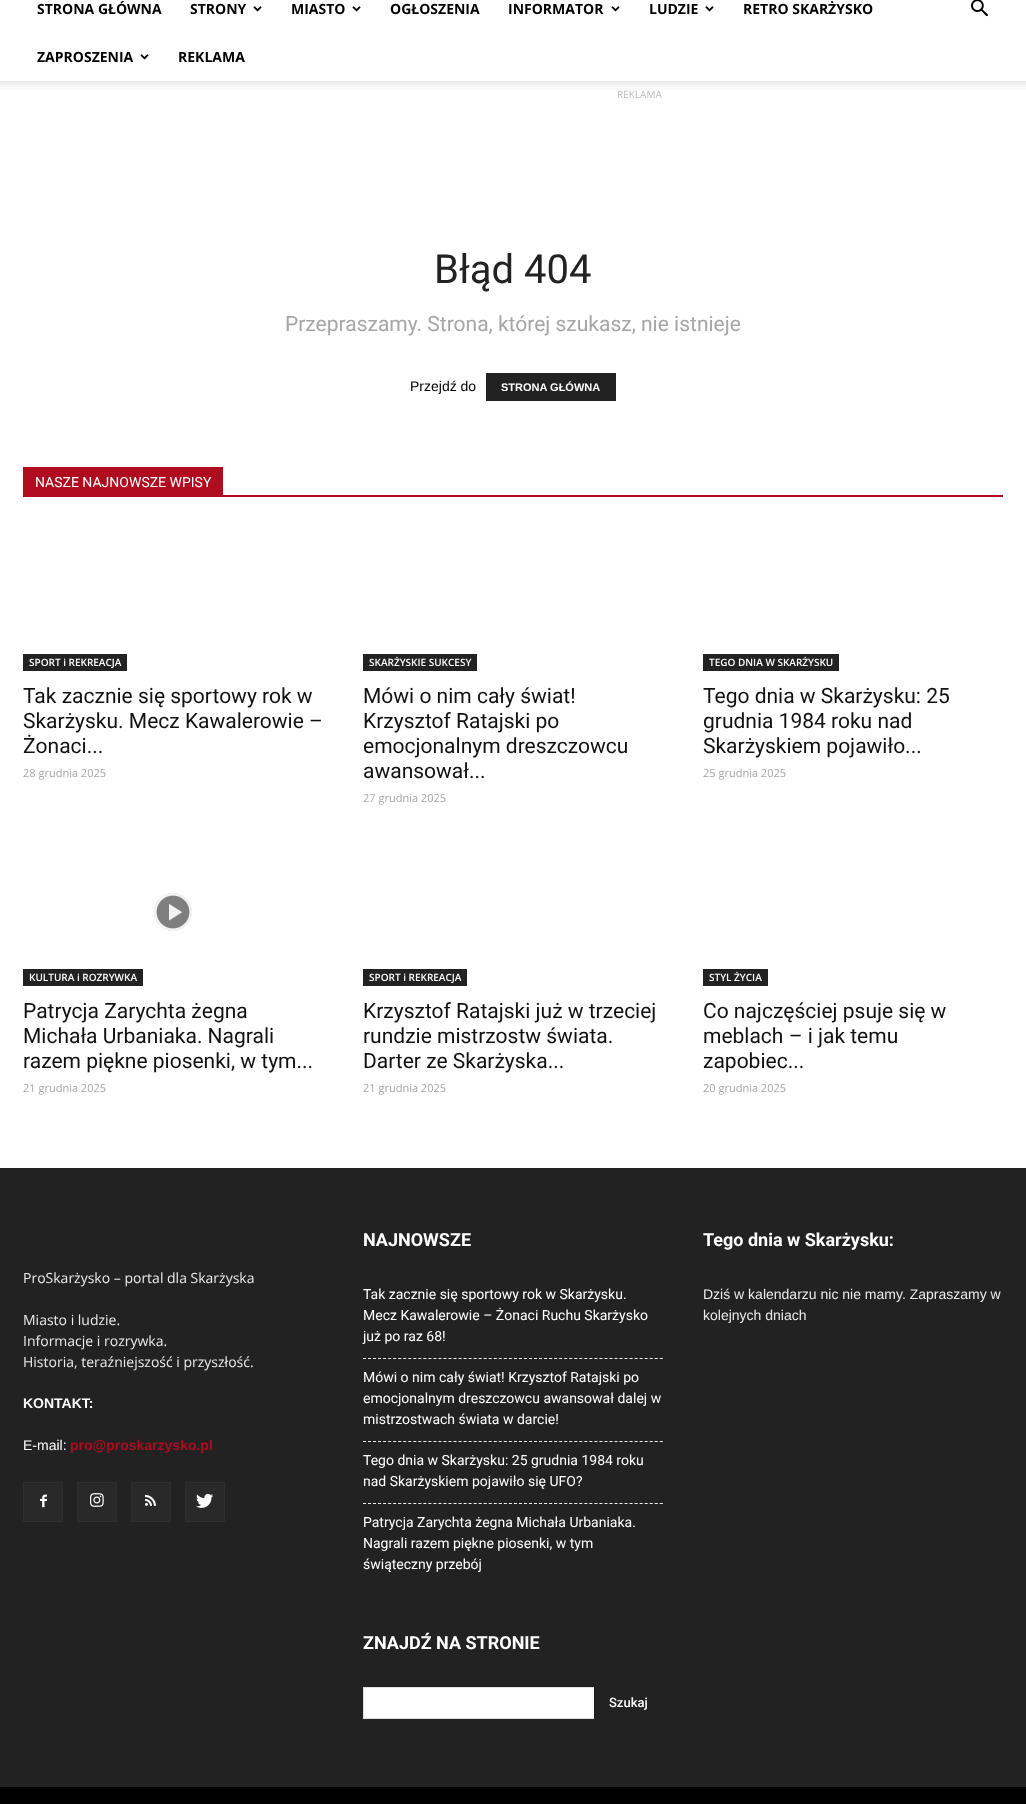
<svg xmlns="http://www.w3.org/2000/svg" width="1026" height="1804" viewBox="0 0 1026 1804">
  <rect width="100%" height="100%" fill="#ffffff"/>
  <text x="37" y="14" font-family="Open Sans" font-size="14" font-weight="bold" fill="#000000">STRONA GŁÓWNA</text>
  <text x="190" y="14" font-family="Open Sans" font-size="14" font-weight="bold" fill="#000000">STRONY</text>
  <image x="253" y="6" width="9" height="6" href="img1.png"/>
  <text x="291" y="14" font-family="Open Sans" font-size="14" font-weight="bold" fill="#000000">MIASTO</text>
  <image x="352" y="6" width="9" height="6" href="img1.png"/>
  <text x="390" y="14" font-family="Open Sans" font-size="14" font-weight="bold" fill="#000000">OGŁOSZENIA</text>
  <text x="508" y="14" font-family="Open Sans" font-size="14" font-weight="bold" fill="#000000">INFORMATOR</text>
  <image x="611" y="6" width="9" height="6" href="img1.png"/>
  <text x="649" y="14" font-family="Open Sans" font-size="14" font-weight="bold" fill="#000000">LUDZIE</text>
  <image x="705" y="6" width="9" height="6" href="img1.png"/>
  <text x="743" y="14" font-family="Open Sans" font-size="14" font-weight="bold" fill="#000000">RETRO SKARŻYSKO</text>
  <text x="37" y="62" font-family="Open Sans" font-size="14" font-weight="bold" fill="#000000">ZAPROSZENIA</text>
  <image x="140" y="54" width="9" height="6" href="img1.png"/>
  <text x="178" y="62" font-family="Open Sans" font-size="14" font-weight="bold" fill="#000000">REKLAMA</text>
  <image x="971" y="0" width="17" height="17" href="img2.png"/>
  <image x="0" y="81" width="1026" height="9" href="img3.png"/>
  <text x="617" y="98" font-family="Open Sans" font-size="10" fill="#bbbbbb">REKLAMA</text>
  <text x="434" y="283" font-family="Roboto" font-size="40" fill="#222222">Błąd 404</text>
  <text x="285" y="331" font-family="Roboto" font-size="21" fill="#a6a6a6">Przepraszamy. Strona, której szukasz, nie istnieje</text>
  <text x="410" y="391" font-family="Liberation Sans" font-size="14" fill="#000000">Przejdź do</text>
  <rect x="486" y="373" width="130" height="28" fill="#222222"/>
  <text x="501" y="391" font-family="Liberation Sans" font-size="11" font-weight="bold" fill="#ffffff">STRONA GŁÓWNA</text>
  <rect x="23" y="495" width="980" height="2" fill="#b00b1e"/>
  <rect x="23" y="467" width="200" height="28" fill="#b00b1e"/>
  <text x="35" y="487" font-family="Roboto" font-size="14" fill="#ffffff">NASZE NAJNOWSZE WPISY</text>
  <rect x="23" y="654" width="104" height="17" fill="#222222"/>
  <text x="29" y="666" font-family="Open Sans" font-size="10" font-weight="600" fill="#ffffff">SPORT i REKREACJA</text>
  <text x="23" y="703" font-family="Roboto" font-size="21" fill="#111111">Tak zacznie się sportowy rok w</text>
  <text x="23" y="728" font-family="Roboto" font-size="21" fill="#111111">Skarżysku. Mecz Kawalerowie –</text>
  <text x="23" y="753" font-family="Roboto" font-size="21" fill="#111111">Żonaci...</text>
  <text x="23" y="777" font-family="Open Sans" font-size="11" fill="#a6a6a6">28 grudnia 2025</text>
  <rect x="363" y="654" width="114" height="17" fill="#222222"/>
  <text x="369" y="666" font-family="Open Sans" font-size="10" font-weight="600" fill="#ffffff">SKARŻYSKIE SUKCESY</text>
  <text x="363" y="703" font-family="Roboto" font-size="21" fill="#111111">Mówi o nim cały świat!</text>
  <text x="363" y="728" font-family="Roboto" font-size="21" fill="#111111">Krzysztof Ratajski po</text>
  <text x="363" y="753" font-family="Roboto" font-size="21" fill="#111111">emocjonalnym dreszczowcu</text>
  <text x="363" y="778" font-family="Roboto" font-size="21" fill="#111111">awansował...</text>
  <text x="363" y="802" font-family="Open Sans" font-size="11" fill="#a6a6a6">27 grudnia 2025</text>
  <rect x="703" y="654" width="136" height="17" fill="#222222"/>
  <text x="709" y="666" font-family="Open Sans" font-size="10" font-weight="600" fill="#ffffff">TEGO DNIA W SKARŻYSKU</text>
  <text x="703" y="703" font-family="Roboto" font-size="21" fill="#111111">Tego dnia w Skarżysku: 25</text>
  <text x="703" y="728" font-family="Roboto" font-size="21" fill="#111111">grudnia 1984 roku nad</text>
  <text x="703" y="753" font-family="Roboto" font-size="21" fill="#111111">Skarżyskiem pojawiło...</text>
  <text x="703" y="777" font-family="Open Sans" font-size="11" fill="#a6a6a6">25 grudnia 2025</text>
  <image x="154" y="893" width="38" height="38" href="img4.png"/>
  <rect x="23" y="969" width="120" height="17" fill="#222222"/>
  <text x="29" y="981" font-family="Open Sans" font-size="10" font-weight="600" fill="#ffffff">KULTURA i ROZRYWKA</text>
  <text x="23" y="1018" font-family="Roboto" font-size="21" fill="#111111">Patrycja Zarychta żegna</text>
  <text x="23" y="1043" font-family="Roboto" font-size="21" fill="#111111">Michała Urbaniaka. Nagrali</text>
  <text x="23" y="1068" font-family="Roboto" font-size="21" fill="#111111">razem piękne piosenki, w tym...</text>
  <text x="23" y="1092" font-family="Open Sans" font-size="11" fill="#a6a6a6">21 grudnia 2025</text>
  <rect x="363" y="969" width="104" height="17" fill="#222222"/>
  <text x="369" y="981" font-family="Open Sans" font-size="10" font-weight="600" fill="#ffffff">SPORT i REKREACJA</text>
  <text x="363" y="1018" font-family="Roboto" font-size="21" fill="#111111">Krzysztof Ratajski już w trzeciej</text>
  <text x="363" y="1043" font-family="Roboto" font-size="21" fill="#111111">rundzie mistrzostw świata.</text>
  <text x="363" y="1068" font-family="Roboto" font-size="21" fill="#111111">Darter ze Skarżyska...</text>
  <text x="363" y="1092" font-family="Open Sans" font-size="11" fill="#a6a6a6">21 grudnia 2025</text>
  <rect x="703" y="969" width="65" height="17" fill="#222222"/>
  <text x="709" y="981" font-family="Open Sans" font-size="10" font-weight="600" fill="#ffffff">STYL ŻYCIA</text>
  <text x="703" y="1018" font-family="Roboto" font-size="21" fill="#111111">Co najczęściej psuje się w</text>
  <text x="703" y="1043" font-family="Roboto" font-size="21" fill="#111111">meblach – i jak temu</text>
  <text x="703" y="1068" font-family="Roboto" font-size="21" fill="#111111">zapobiec...</text>
  <text x="703" y="1092" font-family="Open Sans" font-size="11" fill="#a6a6a6">20 grudnia 2025</text>
  <rect x="0" y="1168" width="1026" height="619" fill="#222222"/>
  <text x="23" y="1283" font-family="Open Sans" font-size="14" fill="#eaeaea">ProSkarżysko – portal dla Skarżyska</text>
  <text x="23" y="1325" font-family="Open Sans" font-size="14" fill="#eaeaea">Miasto i ludzie.</text>
  <text x="23" y="1346" font-family="Open Sans" font-size="14" fill="#eaeaea">Informacje i rozrywka.</text>
  <text x="23" y="1367" font-family="Open Sans" font-size="14" fill="#eaeaea">Historia, teraźniejszość i przyszłość.</text>
  <text x="23" y="1408" font-family="Liberation Sans" font-size="14" font-weight="bold" fill="#ffffff">KONTAKT:</text>
  <text x="23" y="1450" font-family="Liberation Sans" font-size="14" fill="#ffffff">E-mail:</text>
  <text x="70" y="1450" font-family="Liberation Sans" font-size="14" font-weight="bold" fill="#b00b1e">pro@proskarzysko.pl</text>
  <rect x="24" y="1483" width="38" height="38" fill="#292929"/>
  <image x="40" y="1494" width="7" height="14" href="img5.png"/>
  <rect x="23.5" y="1482.5" width="39" height="39" fill="none" stroke="#2f2f2f"/>
  <rect x="78" y="1483" width="38" height="38" fill="#292929"/>
  <image x="90" y="1493" width="14" height="14" href="img6.png"/>
  <rect x="77.5" y="1482.5" width="39" height="39" fill="none" stroke="#2f2f2f"/>
  <rect x="132" y="1483" width="38" height="38" fill="#292929"/>
  <image x="145" y="1494" width="11" height="12" href="img7.png"/>
  <rect x="131.5" y="1482.5" width="39" height="39" fill="none" stroke="#2f2f2f"/>
  <rect x="186" y="1483" width="38" height="38" fill="#292929"/>
  <image x="196" y="1493" width="18" height="15" href="img8.png"/>
  <rect x="185.5" y="1482.5" width="39" height="39" fill="none" stroke="#2f2f2f"/>
  <text x="363" y="1246" font-family="Roboto" font-size="18" font-weight="bold" fill="#ffffff">NAJNOWSZE</text>
  <path d="M363 1358.5H663" fill="none" stroke="#f1f1f1" stroke-dasharray="3 2.03"/>
  <text x="363" y="1299" font-family="Roboto" font-size="14" fill="#ffffff">Tak zacznie się sportowy rok w Skarżysku.</text>
  <text x="363" y="1320" font-family="Roboto" font-size="14" fill="#ffffff">Mecz Kawalerowie – Żonaci Ruchu Skarżysko</text>
  <text x="363" y="1341" font-family="Roboto" font-size="14" fill="#ffffff">już po raz 68!</text>
  <path d="M363 1441.5H663" fill="none" stroke="#f1f1f1" stroke-dasharray="3 2.03"/>
  <text x="363" y="1382" font-family="Roboto" font-size="14" fill="#ffffff">Mówi o nim cały świat! Krzysztof Ratajski po</text>
  <text x="363" y="1403" font-family="Roboto" font-size="14" fill="#ffffff">emocjonalnym dreszczowcu awansował dalej w</text>
  <text x="363" y="1424" font-family="Roboto" font-size="14" fill="#ffffff">mistrzostwach świata w darcie!</text>
  <path d="M363 1503.5H663" fill="none" stroke="#f1f1f1" stroke-dasharray="3 2.03"/>
  <text x="363" y="1465" font-family="Roboto" font-size="14" fill="#ffffff">Tego dnia w Skarżysku: 25 grudnia 1984 roku</text>
  <text x="363" y="1486" font-family="Roboto" font-size="14" fill="#ffffff">nad Skarżyskiem pojawiło się UFO?</text>
  <text x="363" y="1527" font-family="Roboto" font-size="14" fill="#ffffff">Patrycja Zarychta żegna Michała Urbaniaka.</text>
  <text x="363" y="1548" font-family="Roboto" font-size="14" fill="#ffffff">Nagrali razem piękne piosenki, w tym</text>
  <text x="363" y="1569" font-family="Roboto" font-size="14" fill="#ffffff">świąteczny przebój</text>
  <text x="363" y="1649" font-family="Roboto" font-size="18" font-weight="bold" fill="#ffffff">ZNAJDŹ NA STRONIE</text>
  <rect x="364" y="1688" width="230" height="30" fill="#ffffff"/>
  <rect x="363" y="1687" width="231" height="1" fill="#e1e1e1"/>
  <rect x="363" y="1718" width="231" height="1" fill="#e1e1e1"/>
  <rect x="363" y="1687" width="1" height="32" fill="#e1e1e1"/>
  <text x="609" y="1707" font-family="Roboto" font-size="13" font-weight="500" fill="#ffffff">Szukaj</text>
  <text x="703" y="1246" font-family="Roboto" font-size="18" font-weight="bold" fill="#ffffff">Tego dnia w Skarżysku:</text>
  <text x="703" y="1299" font-family="Liberation Sans" font-size="14" fill="#eaeaea">Dziś w kalendarzu nic nie mamy. Zapraszamy w</text>
  <text x="703" y="1320" font-family="Liberation Sans" font-size="14" fill="#eaeaea">kolejnych dniach</text>
  <rect x="0" y="1787" width="1026" height="17" fill="#000000"/>
</svg>
